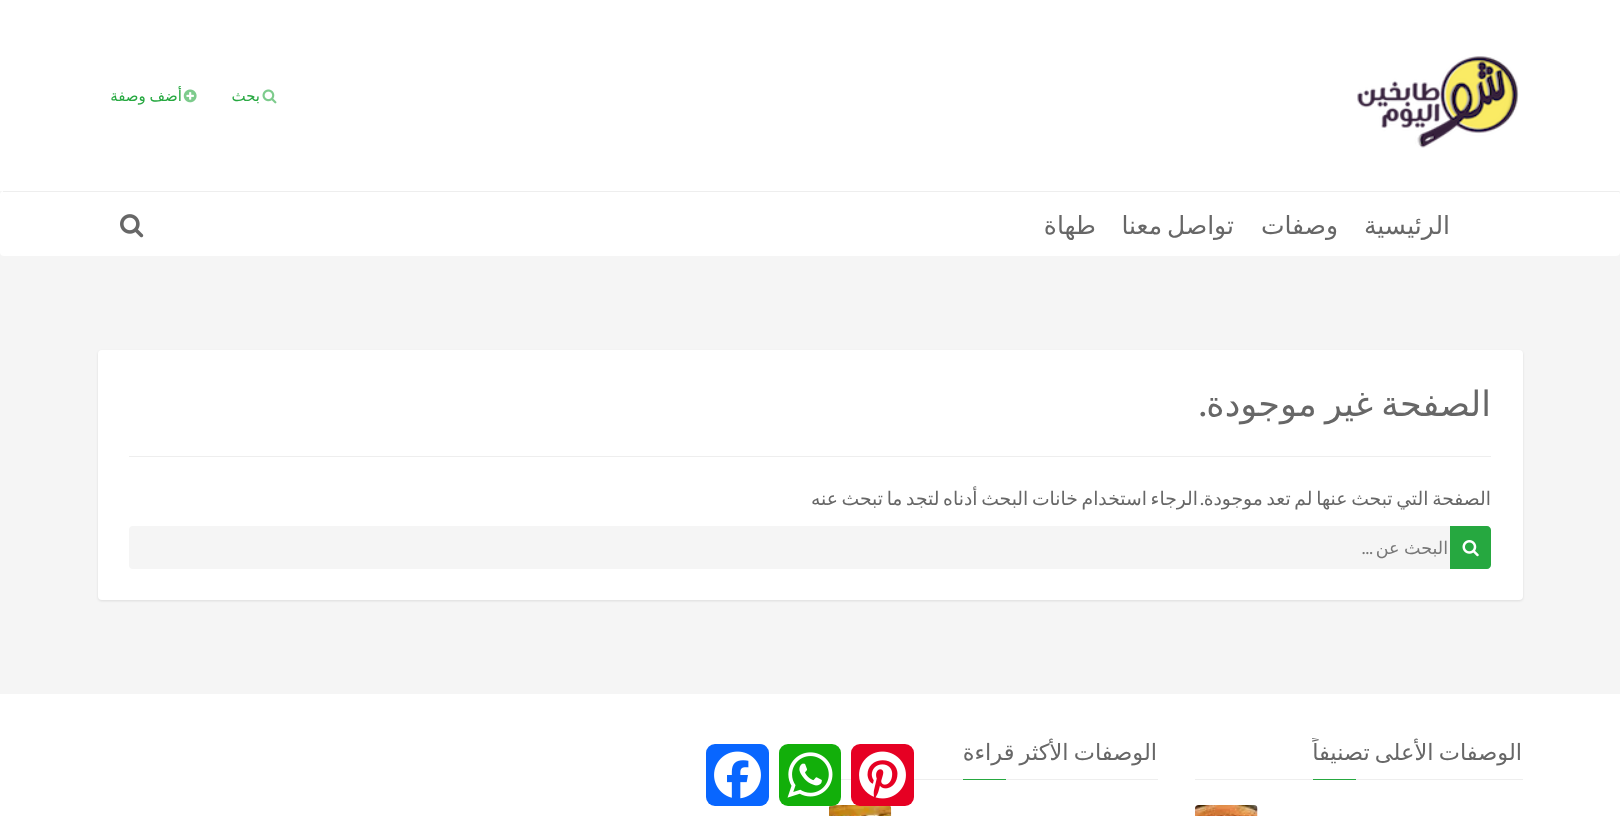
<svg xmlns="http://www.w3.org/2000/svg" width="1620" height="816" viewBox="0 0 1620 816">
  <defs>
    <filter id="blur1" x="-50%" y="-200%" width="200%" height="500%"><feGaussianBlur stdDeviation="1"/></filter>
    <clipPath id="clip1"><rect x="1195" y="738" width="328" height="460" rx="4"/></clipPath>
  </defs>
  <rect width="100%" height="100%" fill="#f5f5f5"/>
  <rect x="0" y="0" width="1620" height="191" fill="#ffffff"/>
  <image x="1357" y="56" width="162" height="92" href="img1.png"/>
  <image x="262" y="89" width="15" height="15" href="img2.png"/>
  <text x="260" y="101" font-family="DejaVu Sans" font-size="15" direction="rtl" fill="#26a840">بحث</text>
  <image x="183" y="89" width="14" height="14" href="img3.png"/>
  <text x="182" y="101" word-spacing="-1" font-family="DejaVu Sans" font-size="15" direction="rtl" fill="#26a840">أضف وصفة</text>
  <rect x="0" y="191" width="1620" height="65" rx="4" fill="#ffffff"/>
  <rect x="3" y="191" width="1616" height="1" fill="#eeeeee"/>
  <text x="1450" y="234" font-family="DejaVu Sans" font-size="25" direction="rtl" fill="#676767">الرئيسية</text>
  <text x="1338" y="234" font-family="DejaVu Sans" font-size="25" direction="rtl" fill="#676767">وصفات</text>
  <text x="1234" y="234" word-spacing="-3" font-family="DejaVu Sans" font-size="25" direction="rtl" fill="#676767">تواصل معنا</text>
  <text x="1096" y="234" font-family="DejaVu Sans" font-size="25" direction="rtl" fill="#676767">طهاة</text>
  <image x="120" y="214" width="24" height="24" href="img4.png"/>
  <rect x="98" y="351" width="1425" height="250" rx="4" fill="#000000" fill-opacity="0.1" filter="url(#blur1)"/>
  <rect x="98" y="350" width="1425" height="250" rx="4" fill="#ffffff"/>
  <text x="1491" y="416" word-spacing="-3" font-family="DejaVu Sans" font-size="35" direction="rtl" fill="#676767">الصفحة غير موجودة</text>
  <text x="1207" y="416" font-family="Ubuntu" font-size="35" direction="rtl" fill="#676767">.</text>
  <rect x="129" y="456" width="1362" height="1" fill="#eeeeee"/>
  <text x="1491" y="505" word-spacing="-2.25" font-family="DejaVu Sans" font-size="18.75" direction="rtl" fill="#676767">الصفحة التي تبحث عنها لم تعد موجودة</text>
  <text x="1204" y="505" font-family="Lato" font-size="18.75" direction="rtl" fill="#676767">.</text>
  <text x="1198" y="505" word-spacing="-2.25" font-family="DejaVu Sans" font-size="18.75" direction="rtl" fill="#676767">الرجاء استخدام خانات البحث أدناه لتجد ما تبحث عنه</text>
  <rect x="129" y="526" width="1334" height="43" rx="4" fill="#f5f5f5"/>
  <path d="M1450 526H1487C1489 526 1491 528 1491 530V565C1491 567 1489 569 1487 569H1450Z" fill="#26a840"/>
  <image x="1462" y="540" width="17" height="17" href="img5.png"/>
  <text x="1448" y="554" word-spacing="-1" font-family="DejaVu Sans" font-size="17.5" direction="rtl" fill="#777777">البحث عن</text>
  <text x="1373" y="554" font-family="Lato" font-size="17.5" direction="rtl" fill="#777777">...</text>
  <rect x="0" y="694" width="1620" height="122" fill="#ffffff"/>
  <rect x="1195" y="779" width="328" height="1" fill="#eeeeee"/>
  <g clip-path="url(#clip1)">
    <text x="1522" y="760" word-spacing="-2" font-family="DejaVu Sans" font-size="22.5" direction="rtl" fill="#676767">الوصفات الأعلى تصنيفاً</text>
  </g>
  <rect x="1313" y="779" width="43" height="1" fill="#26a840"/>
  <image x="1195" y="805" width="63" height="11" href="img6.png"/>
  <rect x="841" y="779" width="317" height="1" fill="#eeeeee"/>
  <text x="1157" y="760" word-spacing="-2" font-family="DejaVu Sans" font-size="22.5" direction="rtl" fill="#676767">الوصفات الأكثر قراءة</text>
  <rect x="963" y="779" width="43" height="1" fill="#26a840"/>
  <image x="829" y="805" width="63" height="11" href="img7.png"/>
  <rect x="851" y="744" width="63" height="62" rx="9" fill="#e60023"/>
  <image x="859" y="751" width="47" height="48" href="img8.png"/>
  <rect x="779" y="744" width="62" height="62" rx="9" fill="#12af0a"/>
  <image x="787" y="752" width="46" height="46" href="img9.png"/>
  <rect x="706" y="744" width="63" height="62" rx="9" fill="#0866ff"/>
  <image x="714" y="751" width="47" height="48" href="img10.png"/>
</svg>
